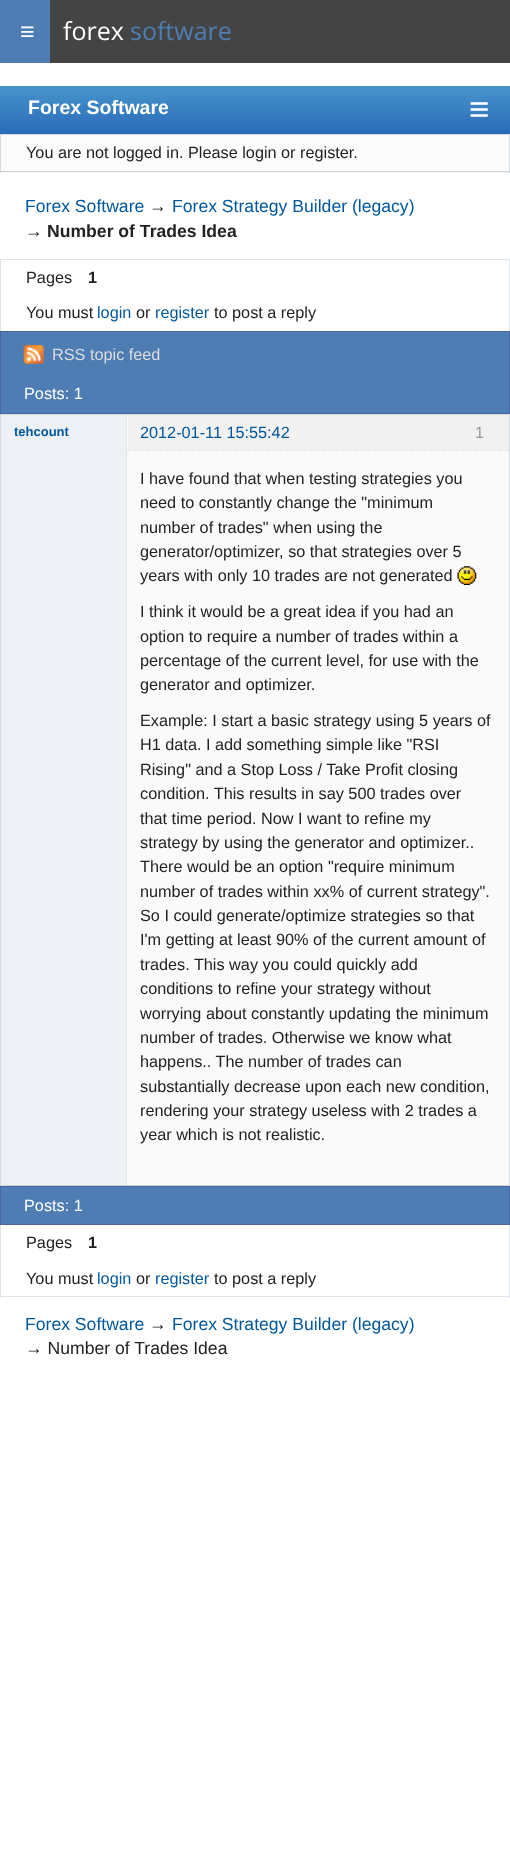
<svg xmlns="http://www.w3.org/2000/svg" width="510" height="1863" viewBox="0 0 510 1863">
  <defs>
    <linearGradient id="g1" gradientUnits="userSpaceOnUse" x1="255" y1="134" x2="255" y2="86"><stop offset="0" stop-color="#2a6ab8"/><stop offset="1" stop-color="#4795cc"/></linearGradient>
  </defs>
  <rect width="100%" height="100%" fill="#ffffff"/>
  <rect x="50" y="0" width="460" height="63" fill="#444444"/>
  <rect x="0" y="0" width="50" height="63" fill="#4d7db3"/>
  <text x="20" y="40" font-family="Liberation Sans" font-size="25" fill="#ffffff">≡</text>
  <text x="63" y="40" font-family="Open Sans" font-size="25" fill="#ffffff">forex</text>
  <text x="130" y="40" font-family="Open Sans" font-size="25" fill="#4d7db3">software</text>
  <rect x="0" y="86" width="510" height="48" fill="url(#g1)"/>
  <text x="28" y="114" font-family="Liberation Sans" font-size="19.5" font-weight="bold" fill="#ffffff">Forex Software</text>
  <text x="469" y="121" font-family="Liberation Sans" font-size="35" fill="#ffffff">≡</text>
  <rect x="1" y="135" width="508" height="38" fill="#fbfbfb"/>
  <rect x="0" y="134" width="510" height="1" fill="#d3dae1"/>
  <rect x="509" y="134" width="1" height="39" fill="#d3dae1"/>
  <rect x="0" y="171" width="510" height="1" fill="#cbd1d8"/>
  <rect x="0" y="134" width="1" height="39" fill="#d3dae1"/>
  <text x="26" y="158" font-family="Liberation Sans" font-size="16.25" fill="#222222">You are not logged in. Please login or register.</text>
  <text x="25" y="212" font-family="Liberation Sans" font-size="17.6" fill="#00579c">Forex Software</text>
  <text x="149" y="212" font-family="Liberation Sans" font-size="17.6" fill="#222222">→</text>
  <text x="172" y="212" font-family="Liberation Sans" font-size="17.6" fill="#00579c">Forex Strategy Builder (legacy)</text>
  <text x="25" y="237" font-family="Liberation Sans" font-size="17.6" fill="#222222">→</text>
  <text x="47" y="237" font-family="Liberation Sans" font-size="17.6" font-weight="bold" fill="#222222">Number of Trades Idea</text>
  <rect x="0" y="259" width="510" height="1" fill="#dde4eb"/>
  <rect x="509" y="259" width="1" height="72" fill="#dde4eb"/>
  <rect x="0" y="259" width="1" height="72" fill="#dde4eb"/>
  <text x="26" y="283" font-family="Liberation Sans" font-size="16.25" fill="#222222">Pages</text>
  <text x="88" y="283" font-family="Liberation Sans" font-size="16.25" font-weight="bold" fill="#222222">1</text>
  <text x="26" y="318" font-family="Liberation Sans" font-size="16.25" fill="#222222">You must</text>
  <text x="97" y="318" font-family="Liberation Sans" font-size="16.25" fill="#00579c">login</text>
  <text x="136" y="318" font-family="Liberation Sans" font-size="16.25" fill="#222222">or</text>
  <text x="155" y="318" font-family="Liberation Sans" font-size="16.25" fill="#00579c">register</text>
  <text x="214" y="318" font-family="Liberation Sans" font-size="16.25" fill="#222222">to post a reply</text>
  <rect x="0.5" y="331.5" width="509" height="82" fill="#4d7db3" stroke="#4c66a4"/>
  <image x="23" y="345" width="21" height="19" href="img1.png"/>
  <text x="52" y="360" font-family="Liberation Sans" font-size="16.25" fill="#dddddd">RSS topic feed</text>
  <text x="24" y="399" font-family="Liberation Sans" font-size="16.25" fill="#ffffff">Posts: 1</text>
  <rect x="0" y="414" width="510" height="1" fill="#d3dae1"/>
  <rect x="509" y="414" width="1" height="772" fill="#d3dae1"/>
  <rect x="0" y="1185" width="510" height="1" fill="#cbd1d8"/>
  <rect x="0" y="414" width="1" height="772" fill="#d3dae1"/>
  <rect x="1" y="415" width="125" height="770" fill="#edf1f5"/>
  <rect x="127" y="415" width="382" height="770" fill="#fafafa"/>
  <rect x="126" y="415" width="1" height="770" fill="#dde4eb"/>
  <rect x="128" y="415" width="381" height="36" fill="#f1f1f1"/>
  <path d="M127.5 450.5H509" fill="none" stroke="#dde4eb" stroke-width="1.2" stroke-dasharray="3.75 2.54"/>
  <text x="14" y="436" font-family="Liberation Sans" font-size="13" font-weight="bold" fill="#00579c">tehcount</text>
  <text x="140" y="438" font-family="Liberation Sans" font-size="16.25" fill="#00579c">2012-01-11 15:55:42</text>
  <text x="475" y="438" font-family="Liberation Sans" font-size="16.25" fill="#999999">1</text>
  <text x="140" y="484" font-family="Liberation Sans" font-size="16.25" fill="#222222">I have found that when testing strategies you</text>
  <text x="140" y="508" font-family="Liberation Sans" font-size="16.25" fill="#222222">need to constantly change the "minimum</text>
  <text x="140" y="533" font-family="Liberation Sans" font-size="16.25" fill="#222222">number of trades" when using the</text>
  <text x="140" y="557" font-family="Liberation Sans" font-size="16.25" fill="#222222">generator/optimizer, so that strategies over 5</text>
  <text x="140" y="581" font-family="Liberation Sans" font-size="16.25" fill="#222222">years with only 10 trades are not generated</text>
  <image x="457" y="566" width="20" height="19" href="img2.png"/>
  <text x="140" y="617" font-family="Liberation Sans" font-size="16.25" fill="#222222">I think it would be a great idea if you had an</text>
  <text x="140" y="642" font-family="Liberation Sans" font-size="16.25" fill="#222222">option to require a number of trades within a</text>
  <text x="140" y="666" font-family="Liberation Sans" font-size="16.25" fill="#222222">percentage of the current level, for use with the</text>
  <text x="140" y="690" font-family="Liberation Sans" font-size="16.25" fill="#222222">generator and optimizer.</text>
  <text x="140" y="726" font-family="Liberation Sans" font-size="16.25" fill="#222222">Example: I start a basic strategy using 5 years of</text>
  <text x="140" y="750" font-family="Liberation Sans" font-size="16.25" fill="#222222">H1 data. I add something simple like "RSI</text>
  <text x="140" y="775" font-family="Liberation Sans" font-size="16.25" fill="#222222">Rising" and a Stop Loss / Take Profit closing</text>
  <text x="140" y="799" font-family="Liberation Sans" font-size="16.25" fill="#222222">condition. This results in say 500 trades over</text>
  <text x="140" y="824" font-family="Liberation Sans" font-size="16.25" fill="#222222">that time period. Now I want to refine my</text>
  <text x="140" y="848" font-family="Liberation Sans" font-size="16.25" fill="#222222">strategy by using the generator and optimizer..</text>
  <text x="140" y="872" font-family="Liberation Sans" font-size="16.25" fill="#222222">There would be an option "require minimum</text>
  <text x="140" y="897" font-family="Liberation Sans" font-size="16.25" fill="#222222">number of trades within xx% of current strategy".</text>
  <text x="140" y="921" font-family="Liberation Sans" font-size="16.25" fill="#222222">So I could generate/optimize strategies so that</text>
  <text x="140" y="945" font-family="Liberation Sans" font-size="16.25" fill="#222222">I'm getting at least 90% of the current amount of</text>
  <text x="140" y="970" font-family="Liberation Sans" font-size="16.25" fill="#222222">trades. This way you could quickly add</text>
  <text x="140" y="994" font-family="Liberation Sans" font-size="16.25" fill="#222222">conditions to refine your strategy without</text>
  <text x="140" y="1019" font-family="Liberation Sans" font-size="16.25" fill="#222222">worrying about constantly updating the minimum</text>
  <text x="140" y="1043" font-family="Liberation Sans" font-size="16.25" fill="#222222">number of trades. Otherwise we know what</text>
  <text x="140" y="1067" font-family="Liberation Sans" font-size="16.25" fill="#222222">happens.. The number of trades can</text>
  <text x="140" y="1092" font-family="Liberation Sans" font-size="16.25" fill="#222222">substantially decrease upon each new condition,</text>
  <text x="140" y="1116" font-family="Liberation Sans" font-size="16.25" fill="#222222">rendering your strategy useless with 2 trades a</text>
  <text x="140" y="1140" font-family="Liberation Sans" font-size="16.25" fill="#222222">year which is not realistic.</text>
  <rect x="0.5" y="1186.5" width="509" height="38" fill="#4d7db3" stroke="#4c66a4"/>
  <text x="24" y="1211" font-family="Liberation Sans" font-size="16.25" fill="#ffffff">Posts: 1</text>
  <rect x="509" y="1225" width="1" height="73" fill="#dde4eb"/>
  <rect x="0" y="1296" width="510" height="1" fill="#dde4eb"/>
  <rect x="0" y="1225" width="1" height="73" fill="#dde4eb"/>
  <text x="26" y="1248" font-family="Liberation Sans" font-size="16.25" fill="#222222">Pages</text>
  <text x="88" y="1248" font-family="Liberation Sans" font-size="16.25" font-weight="bold" fill="#222222">1</text>
  <text x="26" y="1284" font-family="Liberation Sans" font-size="16.25" fill="#222222">You must</text>
  <text x="97" y="1284" font-family="Liberation Sans" font-size="16.25" fill="#00579c">login</text>
  <text x="136" y="1284" font-family="Liberation Sans" font-size="16.25" fill="#222222">or</text>
  <text x="155" y="1284" font-family="Liberation Sans" font-size="16.25" fill="#00579c">register</text>
  <text x="214" y="1284" font-family="Liberation Sans" font-size="16.25" fill="#222222">to post a reply</text>
  <text x="25" y="1330" font-family="Liberation Sans" font-size="17.6" fill="#00579c">Forex Software</text>
  <text x="149" y="1330" font-family="Liberation Sans" font-size="17.6" fill="#222222">→</text>
  <text x="172" y="1330" font-family="Liberation Sans" font-size="17.6" fill="#00579c">Forex Strategy Builder (legacy)</text>
  <text x="25" y="1354" font-family="Liberation Sans" font-size="17.6" fill="#222222">→ Number of Trades Idea</text>
</svg>
